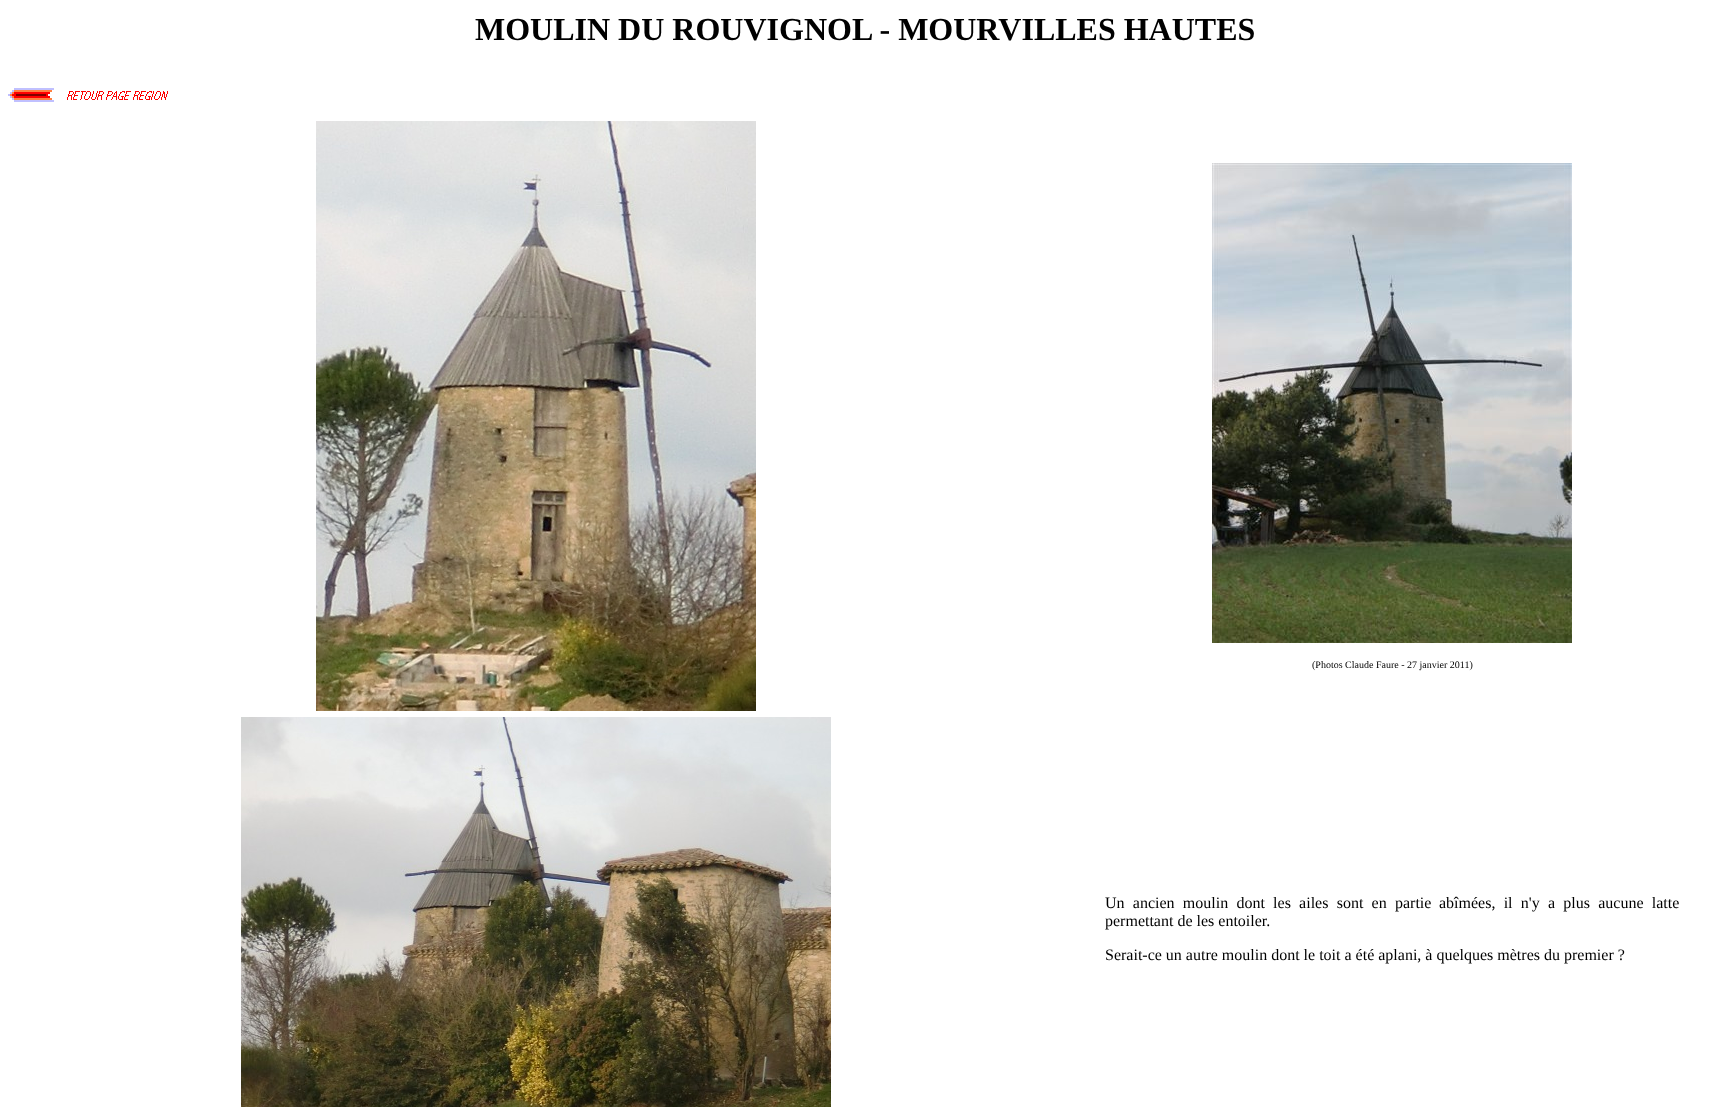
<svg xmlns="http://www.w3.org/2000/svg" width="1730" height="1107" viewBox="0 0 1730 1107">
  <rect width="100%" height="100%" fill="#ffffff"/>
  <text x="475" y="40" font-family="Liberation Serif" font-size="32" font-weight="bold" fill="#000000">MOULIN DU ROUVIGNOL - MOURVILLES HAUTES</text>
  <image x="8" y="88" width="160" height="14" href="img1.png"/>
  <image x="316" y="121" width="440" height="590" href="img2.png"/>
  <image x="1212" y="163" width="360" height="480" href="img3.png"/>
  <text x="1312" y="668" font-family="Liberation Serif" font-size="10" fill="#000000">(Photos Claude Faure - 27 janvier 2011)</text>
  <image x="241" y="717" width="590" height="390" href="img4.png"/>
  <text x="1105" y="908" word-spacing="4.25" font-family="Liberation Serif" font-size="16" fill="#000000">Un ancien moulin dont les ailes sont en partie</text>
  <text x="1439" y="908" word-spacing="4.25" font-family="Liberation Serif" font-size="16" fill="#000000">abîmées, il n'y a plus aucune latte</text>
  <text x="1105" y="926" font-family="Liberation Serif" font-size="16" fill="#000000">permettant de les entoiler.</text>
  <text x="1105" y="960" font-family="Liberation Serif" font-size="16" fill="#000000">Serait-ce un autre moulin dont le toit a été aplani, à quelques mètres du premier ?</text>
</svg>
